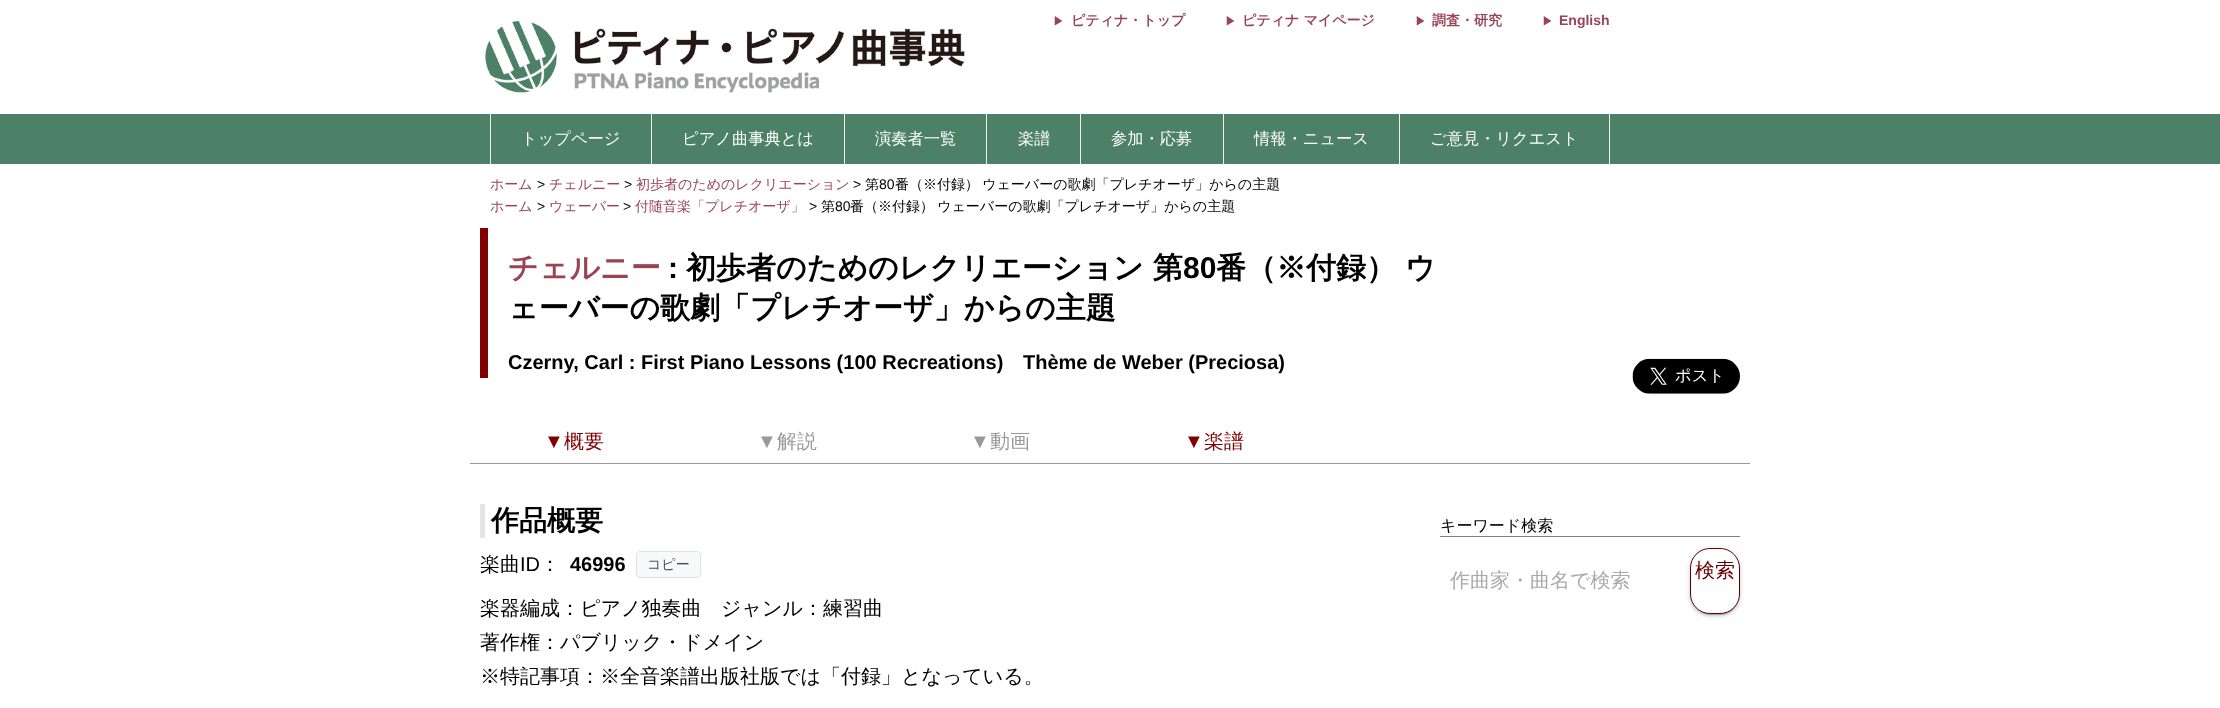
<svg xmlns="http://www.w3.org/2000/svg" width="2220" height="708" viewBox="0 0 2220 708">
  <defs>
    <filter id="blur1" x="-50%" y="-200%" width="200%" height="500%"><feGaussianBlur stdDeviation="0.5"/></filter>
    <filter id="blur2" x="-50%" y="-200%" width="200%" height="500%"><feGaussianBlur stdDeviation="3"/></filter>
    <filter id="blur3" x="-50%" y="-200%" width="200%" height="500%"><feGaussianBlur stdDeviation="1"/></filter>
  </defs>
  <rect width="100%" height="100%" fill="#ffffff"/>
  <image x="485" y="20" width="480" height="73" href="img1.png"/>
  <text x="1053" y="25" font-family="WenQuanYi Zen Hei" font-size="11" font-weight="bold" fill="#994455">▶</text>
  <text x="1071" y="25" font-family="WenQuanYi Zen Hei" font-size="14" font-weight="bold" fill="#994455">ピティナ・トップ</text>
  <text x="1225" y="25" font-family="WenQuanYi Zen Hei" font-size="11" font-weight="bold" fill="#994455">▶</text>
  <text x="1242" y="25" font-family="WenQuanYi Zen Hei" font-size="14" font-weight="bold" fill="#994455">ピティナ マイページ</text>
  <text x="1415" y="25" font-family="WenQuanYi Zen Hei" font-size="11" font-weight="bold" fill="#994455">▶</text>
  <text x="1432" y="25" font-family="WenQuanYi Zen Hei" font-size="14" font-weight="bold" fill="#994455">調査・研究</text>
  <text x="1542" y="25" font-family="WenQuanYi Zen Hei" font-size="11" font-weight="bold" fill="#994455">▶</text>
  <text x="1559" y="25" font-family="Liberation Sans" font-size="14" font-weight="bold" fill="#994455">English</text>
  <rect x="0" y="114" width="2220" height="50" fill="#4c8167"/>
  <rect x="490" y="114" width="1" height="50" fill="#eeeeee"/>
  <rect x="651" y="114" width="1" height="50" fill="#eeeeee"/>
  <text x="521" y="144" font-family="WenQuanYi Zen Hei" font-size="16.25" font-weight="500" fill="#ffffff">トップページ</text>
  <rect x="844" y="114" width="1" height="50" fill="#eeeeee"/>
  <text x="682" y="144" font-family="WenQuanYi Zen Hei" font-size="16.25" font-weight="500" fill="#ffffff">ピアノ曲事典とは</text>
  <rect x="986" y="114" width="1" height="50" fill="#eeeeee"/>
  <text x="875" y="144" font-family="WenQuanYi Zen Hei" font-size="16.25" font-weight="500" fill="#ffffff">演奏者一覧</text>
  <rect x="1080" y="114" width="1" height="50" fill="#eeeeee"/>
  <text x="1018" y="144" font-family="WenQuanYi Zen Hei" font-size="16.25" font-weight="500" fill="#ffffff">楽譜</text>
  <rect x="1223" y="114" width="1" height="50" fill="#eeeeee"/>
  <text x="1111" y="144" font-family="WenQuanYi Zen Hei" font-size="16.25" font-weight="500" fill="#ffffff">参加・応募</text>
  <rect x="1399" y="114" width="1" height="50" fill="#eeeeee"/>
  <text x="1254" y="144" font-family="WenQuanYi Zen Hei" font-size="16.25" font-weight="500" fill="#ffffff">情報・ニュース</text>
  <rect x="1609" y="114" width="1" height="50" fill="#eeeeee"/>
  <text x="1430" y="144" font-family="WenQuanYi Zen Hei" font-size="16.25" font-weight="500" fill="#ffffff">ご意見・リクエスト</text>
  <text x="490" y="189" font-family="WenQuanYi Zen Hei" font-size="14" font-weight="500" fill="#994455">ホーム</text>
  <text x="537" y="189" font-family="Liberation Sans" font-size="14" fill="#000000">&gt;</text>
  <text x="549" y="189" font-family="WenQuanYi Zen Hei" font-size="14" font-weight="500" fill="#994455">チェルニー</text>
  <text x="624" y="189" font-family="Liberation Sans" font-size="14" fill="#000000">&gt;</text>
  <text x="636" y="189" font-family="WenQuanYi Zen Hei" font-size="14" font-weight="500" fill="#994455">初歩者のためのレクリエーション</text>
  <text x="853" y="189" font-family="Liberation Sans" font-size="14" fill="#000000">&gt;</text>
  <text x="865" y="189" font-family="WenQuanYi Zen Hei" font-size="14" font-weight="500" fill="#000000">第</text>
  <text x="879" y="189" font-family="Liberation Sans" font-size="14" fill="#000000">80</text>
  <text x="895" y="189" word-spacing="-1" font-family="WenQuanYi Zen Hei" font-size="14" font-weight="500" fill="#000000">番（※付録） ウェーバーの歌劇「プレチオーザ」からの主題</text>
  <text x="490" y="211" font-family="WenQuanYi Zen Hei" font-size="14" font-weight="500" fill="#994455">ホーム</text>
  <text x="537" y="211" font-family="Liberation Sans" font-size="14" fill="#000000">&gt;</text>
  <text x="549" y="211" font-family="WenQuanYi Zen Hei" font-size="14" font-weight="500" fill="#994455">ウェーバー</text>
  <text x="623" y="211" font-family="Liberation Sans" font-size="14" fill="#000000">&gt;</text>
  <text x="635" y="211" font-family="WenQuanYi Zen Hei" font-size="14" font-weight="500" fill="#994455">付随音楽「プレチオーザ」</text>
  <text x="809" y="211" font-family="Liberation Sans" font-size="14" fill="#000000">&gt;</text>
  <text x="821" y="211" font-family="WenQuanYi Zen Hei" font-size="14" font-weight="500" fill="#000000">第</text>
  <text x="835" y="211" font-family="Liberation Sans" font-size="14" fill="#000000">80</text>
  <text x="850" y="211" word-spacing="-1" font-family="WenQuanYi Zen Hei" font-size="14" font-weight="500" fill="#000000">番（※付録） ウェーバーの歌劇「プレチオーザ」からの主題</text>
  <rect x="480" y="228" width="8" height="150" fill="#800000"/>
  <text x="508" y="278" font-family="WenQuanYi Zen Hei" font-size="30" font-weight="bold" fill="#994455">チェルニー</text>
  <text x="668" y="278" font-family="Liberation Sans" font-size="30" font-weight="bold" fill="#000000">:</text>
  <text x="686" y="278" font-family="WenQuanYi Zen Hei" font-size="30" font-weight="bold" fill="#000000">初歩者のためのレクリエーション 第</text>
  <text x="1183" y="278" font-family="Liberation Sans" font-size="30" font-weight="bold" fill="#000000">80</text>
  <text x="1216" y="278" font-family="WenQuanYi Zen Hei" font-size="30" font-weight="bold" fill="#000000">番（※付録） ウ</text>
  <text x="508" y="318" font-family="WenQuanYi Zen Hei" font-size="30" font-weight="bold" fill="#000000">ェーバーの歌劇「プレチオーザ」からの主題</text>
  <text x="508" y="369" font-family="Liberation Sans" font-size="20" font-weight="bold" fill="#000000">Czerny, Carl : First Piano Lessons (100 Recreations)</text>
  <text x="1023" y="369" font-family="Liberation Sans" font-size="20" font-weight="bold" fill="#000000">Thème de Weber (Preciosa)</text>
  <image x="1632" y="358" width="108" height="36" href="img2.png"/>
  <rect x="470" y="463" width="1280" height="1" fill="#999999"/>
  <text x="544" y="448" font-family="Liberation Sans" font-size="20" fill="#800000">▼</text>
  <text x="564" y="448" font-family="WenQuanYi Zen Hei" font-size="20" font-weight="500" fill="#800000">概要</text>
  <text x="757" y="448" font-family="Liberation Sans" font-size="20" fill="#999999">▼</text>
  <text x="777" y="448" font-family="WenQuanYi Zen Hei" font-size="20" font-weight="500" fill="#999999">解説</text>
  <text x="970" y="448" font-family="Liberation Sans" font-size="20" fill="#999999">▼</text>
  <text x="990" y="448" font-family="WenQuanYi Zen Hei" font-size="20" font-weight="500" fill="#999999">動画</text>
  <text x="1184" y="448" font-family="Liberation Sans" font-size="20" fill="#800000">▼</text>
  <text x="1204" y="448" font-family="WenQuanYi Zen Hei" font-size="20" font-weight="500" fill="#800000">楽譜</text>
  <rect x="480" y="504" width="5" height="34" fill="#e5e5e5"/>
  <text x="491" y="530" font-family="WenQuanYi Zen Hei" font-size="28" font-weight="bold" fill="#000000">作品概要</text>
  <text x="480" y="571" font-family="WenQuanYi Zen Hei" font-size="20" font-weight="500" fill="#000000">楽曲</text>
  <text x="520" y="571" font-family="Liberation Sans" font-size="20" fill="#000000">ID</text>
  <text x="540" y="571" font-family="WenQuanYi Zen Hei" font-size="20" font-weight="500" fill="#000000">：</text>
  <text x="570" y="571" font-family="Liberation Sans" font-size="20" font-weight="bold" fill="#000000">46996</text>
  <rect x="636.5" y="551.5" width="64" height="26" rx="3.5" fill="#f8f9fa" stroke="#dee2e6"/>
  <text x="647" y="569" font-family="WenQuanYi Zen Hei" font-size="14" font-weight="500" fill="#495057">コピー</text>
  <text x="480" y="615" font-family="WenQuanYi Zen Hei" font-size="20" font-weight="500" fill="#000000">楽器編成：ピアノ独奏曲</text>
  <text x="721" y="615" font-family="WenQuanYi Zen Hei" font-size="20" font-weight="500" fill="#000000">ジャンル：練習曲</text>
  <text x="480" y="649" font-family="WenQuanYi Zen Hei" font-size="20" font-weight="500" fill="#000000">著作権：パブリック・ドメイン</text>
  <text x="480" y="683" font-family="WenQuanYi Zen Hei" font-size="20" font-weight="500" fill="#000000">※特記事項：※全音楽譜出版社版では「付録」となっている。</text>
  <rect x="1440" y="536" width="300" height="1" fill="#808080"/>
  <text x="1440" y="531" font-family="WenQuanYi Zen Hei" font-size="16" font-weight="500" fill="#000000">キーワード検索</text>
  <text x="1450" y="587" font-family="WenQuanYi Zen Hei" font-size="20" font-weight="500" fill="#aaaaaa">作曲家・曲名で検索</text>
  <rect x="1693" y="554" width="45" height="61" rx="18" fill="#000000" fill-opacity="0.2" filter="url(#blur1)"/>
  <rect x="1690" y="549" width="50" height="66" rx="20" fill="#000000" fill-opacity="0.12" filter="url(#blur2)"/>
  <rect x="1690" y="550" width="50" height="66" rx="20" fill="#000000" fill-opacity="0.14" filter="url(#blur3)"/>
  <rect x="1690.5" y="548.5" width="49" height="65" rx="19.5" fill="#ffffff" stroke="#660000"/>
  <text x="1695" y="577" font-family="WenQuanYi Zen Hei" font-size="20" font-weight="500" fill="#660000">検索</text>
</svg>
